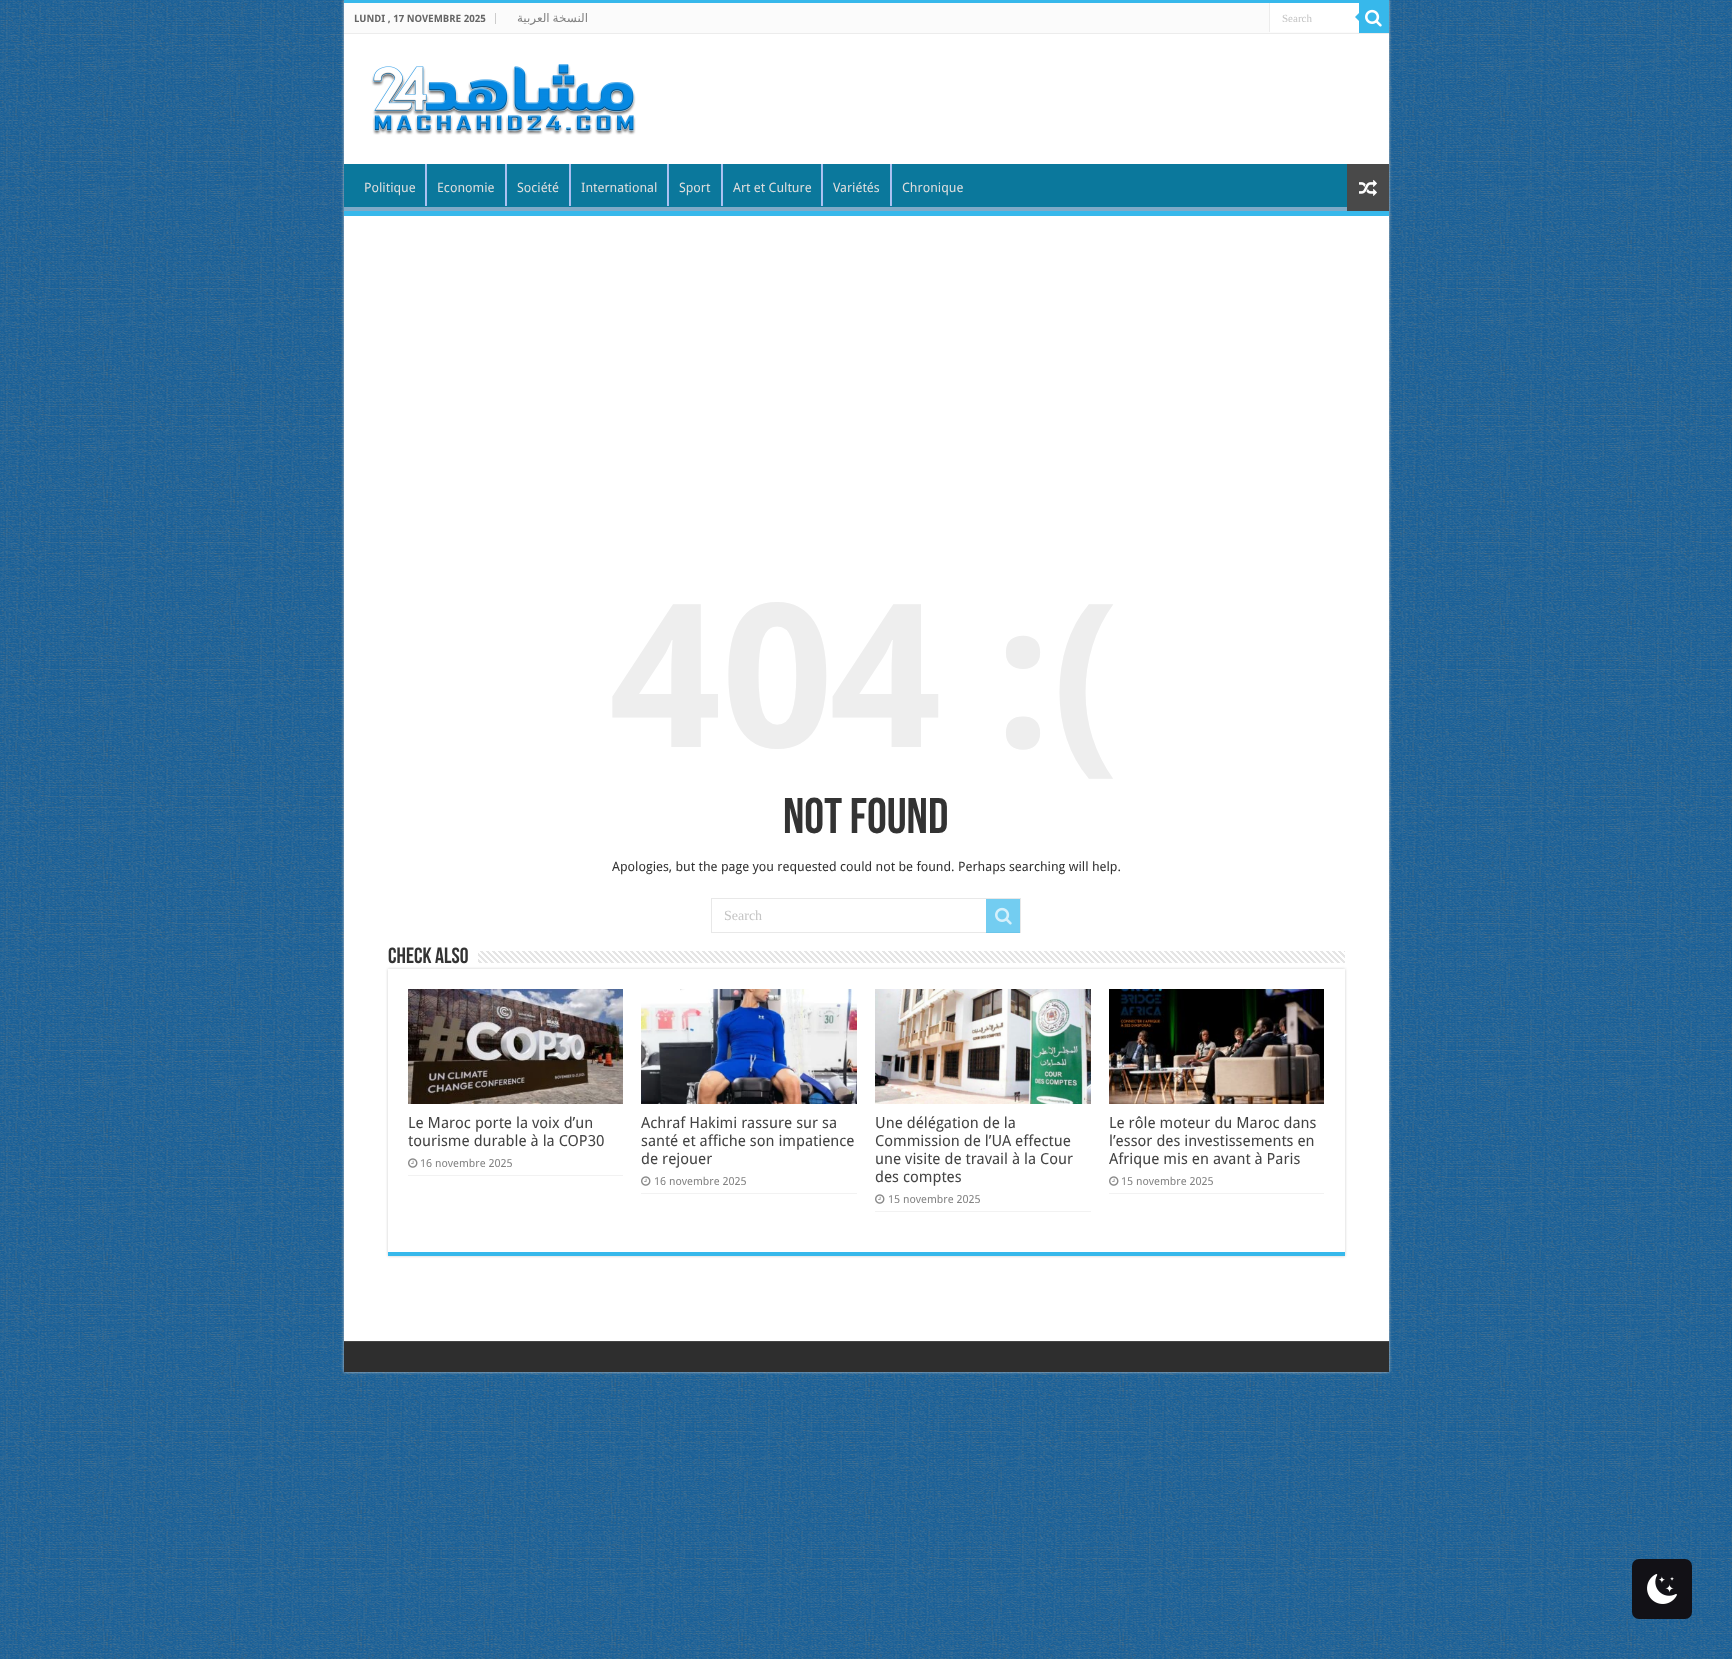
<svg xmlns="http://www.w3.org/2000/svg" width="1732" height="1659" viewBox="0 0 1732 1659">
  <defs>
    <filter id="blur1" x="-50%" y="-200%" width="200%" height="500%"><feGaussianBlur stdDeviation="1.5"/></filter>
    <clipPath id="clip1"><rect x="344" y="164" width="1045" height="47"/></clipPath>
    <clipPath id="clip2"><path d="M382 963H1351V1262H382ZM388 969H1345V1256H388Z" clip-rule="evenodd"/></clipPath>
  </defs>
  <rect width="100%" height="100%" fill="#125b96"/>
  <image x="0" y="0" width="1732" height="1659" href="img1.png"/>
  <rect x="344" y="0" width="1045" height="1372" fill="#cacaca" filter="url(#blur1)"/>
  <rect x="344" y="34" width="1045" height="1307" fill="#ffffff"/>
  <rect x="344" y="0" width="1045" height="3" fill="#37b8eb"/>
  <rect x="344" y="3" width="1015" height="30" fill="#fbfbfb"/>
  <rect x="344" y="33" width="1045" height="1" fill="#ececec"/>
  <rect x="495" y="13" width="1" height="11" fill="#cccccc"/>
  <text x="354" y="22" font-family="Droid Sans" font-size="10" font-weight="bold" fill="#666666">LUNDI , 17 NOVEMBRE 2025</text>
  <text x="588" y="22" word-spacing="-1" font-family="DejaVu Sans" font-size="12" direction="rtl" fill="#838383">النسخة العربية</text>
  <rect x="1270" y="3" width="89" height="29" fill="#ffffff"/>
  <rect x="1269" y="3" width="1" height="29" fill="#ececec"/>
  <text x="1282" y="22" font-family="Liberation Serif" font-size="11" fill="#c5c5c5">Search</text>
  <rect x="1359" y="3" width="30" height="30" fill="#37b8eb"/>
  <image x="1365" y="9" width="17" height="18" href="img2.png"/>
  <path d="M1359 13V21L1355 17Z" fill="#37b8eb"/>
  <image x="371" y="64" width="265" height="71" href="img3.png"/>
  <rect x="344" y="164" width="1003" height="43" fill="#0b789c"/>
  <g clip-path="url(#clip1)">
    <path d="M245 65H1488V310H245ZM343 158H1389V198C1389 199 1390 207 1388 207H343L342 206V158Z" fill="#7faac7" fill-rule="evenodd"/>
  </g>
  <rect x="344" y="211" width="1045" height="5" fill="#37b8eb"/>
  <text x="364" y="192" font-family="Droid Sans" font-size="13" fill="#dddddd">Politique</text>
  <rect x="425" y="164" width="1" height="42" fill="#acc4f2"/>
  <rect x="426" y="164" width="1" height="42" fill="#aabdf0"/>
  <text x="437" y="192" font-family="Droid Sans" font-size="13" fill="#dddddd">Economie</text>
  <rect x="505" y="164" width="1" height="42" fill="#acc4f2"/>
  <rect x="506" y="164" width="1" height="42" fill="#aabdf0"/>
  <text x="517" y="192" font-family="Droid Sans" font-size="13" fill="#dddddd">Société</text>
  <rect x="569" y="164" width="1" height="42" fill="#acc4f2"/>
  <rect x="570" y="164" width="1" height="42" fill="#aabdf0"/>
  <text x="581" y="192" font-family="Droid Sans" font-size="13" fill="#dddddd">International</text>
  <rect x="667" y="164" width="1" height="42" fill="#acc4f2"/>
  <rect x="668" y="164" width="1" height="42" fill="#aabdf0"/>
  <text x="679" y="192" font-family="Droid Sans" font-size="13" fill="#dddddd">Sport</text>
  <rect x="721" y="164" width="1" height="42" fill="#acc4f2"/>
  <rect x="722" y="164" width="1" height="42" fill="#aabdf0"/>
  <text x="733" y="192" font-family="Droid Sans" font-size="13" fill="#dddddd">Art et Culture</text>
  <rect x="821" y="164" width="1" height="42" fill="#acc4f2"/>
  <rect x="822" y="164" width="1" height="42" fill="#aabdf0"/>
  <text x="833" y="192" font-family="Droid Sans" font-size="13" fill="#dddddd">Variétés</text>
  <rect x="890" y="164" width="1" height="42" fill="#acc4f2"/>
  <rect x="891" y="164" width="1" height="42" fill="#aabdf0"/>
  <text x="902" y="192" font-family="Droid Sans" font-size="13" fill="#dddddd">Chronique</text>
  <rect x="1347" y="164" width="42" height="47" fill="#494949"/>
  <image x="1359" y="179" width="18" height="17" href="img4.png"/>
  <text x="612" y="747" font-family="Droid Sans" font-size="200" font-weight="bold" fill="#eeeeee">404 :(</text>
  <text x="783" y="833" font-family="Bebas Neue" font-size="50" font-weight="bold" fill="#333333">Not Found</text>
  <text x="612" y="871" font-family="Droid Sans" font-size="13" fill="#333333">Apologies, but the page you requested could not be found. Perhaps searching will help.</text>
  <rect x="711.5" y="898.5" width="309" height="34" fill="none" stroke="#e8e8e8"/>
  <text x="724" y="920" font-family="Liberation Serif" font-size="14" fill="#c5c5c5">Search</text>
  <rect x="986" y="899" width="34" height="34" fill="#37b8eb" fill-opacity="0.7"/>
  <image x="995" y="907" width="17" height="18" href="img5.png"/>
  <g clip-path="url(#clip2)">
    <rect x="388" y="969" width="957" height="287" fill="#cacaca" filter="url(#blur1)"/>
  </g>
  <text x="388" y="963" font-family="Bebas Neue" font-size="22" font-weight="bold" fill="#333333">Check Also</text>
  <image x="478" y="951" width="867" height="12" href="img6.png"/>
  <rect x="388" y="1252" width="957" height="4" fill="#37b8eb"/>
  <image x="408" y="989" width="215" height="115" href="img7.png"/>
  <text x="408" y="1128" font-family="Droid Sans" font-size="15.25" fill="#444444">Le Maroc porte la voix d’un</text>
  <text x="408" y="1146" font-family="Droid Sans" font-size="15.25" fill="#444444">tourisme durable à la COP30</text>
  <rect x="408" y="1175" width="215" height="1" fill="#f2f2f2"/>
  <image x="408" y="1158" width="10" height="10" href="img8.png"/>
  <text x="420" y="1167" font-family="Droid Sans" font-size="11" fill="#838383">16 novembre 2025</text>
  <image x="641" y="989" width="216" height="115" href="img9.png"/>
  <text x="641" y="1128" font-family="Droid Sans" font-size="15.25" fill="#444444">Achraf Hakimi rassure sur sa</text>
  <text x="641" y="1146" font-family="Droid Sans" font-size="15.25" fill="#444444">santé et affiche son impatience</text>
  <text x="641" y="1164" font-family="Droid Sans" font-size="15.25" fill="#444444">de rejouer</text>
  <rect x="641" y="1193" width="216" height="1" fill="#f2f2f2"/>
  <image x="641" y="1176" width="10" height="10" href="img8.png"/>
  <text x="654" y="1185" font-family="Droid Sans" font-size="11" fill="#838383">16 novembre 2025</text>
  <image x="875" y="989" width="216" height="115" href="img10.png"/>
  <text x="875" y="1128" font-family="Droid Sans" font-size="15.25" fill="#444444">Une délégation de la</text>
  <text x="875" y="1146" font-family="Droid Sans" font-size="15.25" fill="#444444">Commission de l’UA effectue</text>
  <text x="875" y="1164" font-family="Droid Sans" font-size="15.25" fill="#444444">une visite de travail à la Cour</text>
  <text x="875" y="1182" font-family="Droid Sans" font-size="15.25" fill="#444444">des comptes</text>
  <rect x="875" y="1211" width="216" height="1" fill="#f2f2f2"/>
  <image x="875" y="1194" width="10" height="10" href="img8.png"/>
  <text x="888" y="1203" font-family="Droid Sans" font-size="11" fill="#838383">15 novembre 2025</text>
  <image x="1109" y="989" width="215" height="115" href="img11.png"/>
  <text x="1109" y="1128" font-family="Droid Sans" font-size="15.25" fill="#444444">Le rôle moteur du Maroc dans</text>
  <text x="1109" y="1146" font-family="Droid Sans" font-size="15.25" fill="#444444">l’essor des investissements en</text>
  <text x="1109" y="1164" font-family="Droid Sans" font-size="15.25" fill="#444444">Afrique mis en avant à Paris</text>
  <rect x="1109" y="1193" width="215" height="1" fill="#f2f2f2"/>
  <image x="1109" y="1176" width="10" height="10" href="img8.png"/>
  <text x="1121" y="1185" font-family="Droid Sans" font-size="11" fill="#838383">15 novembre 2025</text>
  <rect x="344" y="1342" width="1045" height="30" fill="#2e2e2e"/>
  <rect x="344" y="1341" width="1045" height="1" fill="#444444"/>
  <rect x="1632" y="1559" width="60" height="60" rx="7" fill="#121116"/>
  <image x="1647" y="1574" width="30" height="30" href="img12.png"/>
</svg>
